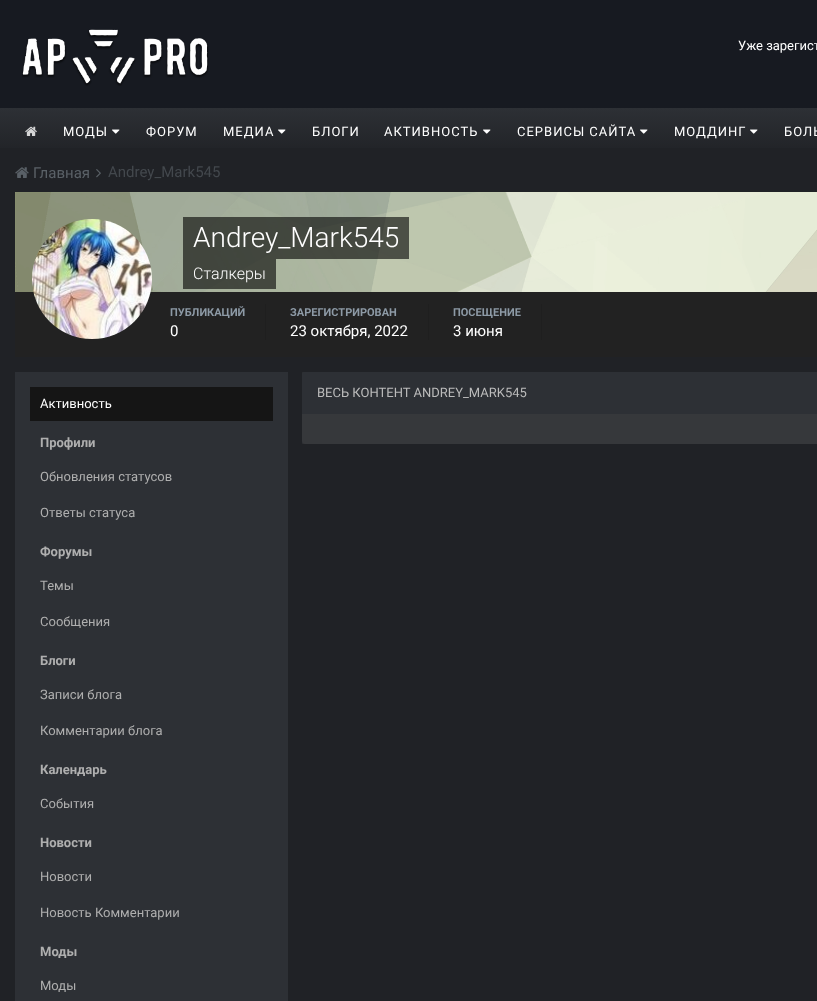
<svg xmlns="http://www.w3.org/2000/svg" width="817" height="1001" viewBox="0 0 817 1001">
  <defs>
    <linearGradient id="g1" gradientUnits="userSpaceOnUse" x1="550" y1="156" x2="550" y2="108"><stop offset="0" stop-color="#202226"/><stop offset="1" stop-color="#2d3035"/></linearGradient>
  </defs>
  <rect width="100%" height="100%" fill="#202226"/>
  <rect x="0" y="0" width="817" height="108" fill="#171a21"/>
  <image x="22" y="29" width="187" height="57" href="img1.png"/>
  <text x="738" y="50" font-family="Roboto" font-size="13" fill="#ffffff">Уже зарегист</text>
  <rect x="0" y="108" width="817" height="40" fill="url(#g1)"/>
  <image x="25" y="126" width="12" height="10" href="img2.png"/>
  <text x="63" y="136" font-family="Roboto" font-size="13" letter-spacing="1" fill="#ffffff">МОДЫ</text>
  <image x="112" y="129" width="8" height="5" href="img3.png"/>
  <text x="146" y="136" font-family="Roboto" font-size="13" letter-spacing="1" fill="#ffffff">ФОРУМ</text>
  <text x="223" y="136" font-family="Roboto" font-size="13" letter-spacing="1" fill="#ffffff">МЕДИА</text>
  <image x="278" y="129" width="8" height="5" href="img3.png"/>
  <text x="312" y="136" font-family="Roboto" font-size="13" letter-spacing="1" fill="#ffffff">БЛОГИ</text>
  <text x="384" y="136" font-family="Roboto" font-size="13" letter-spacing="1" fill="#ffffff">АКТИВНОСТЬ</text>
  <image x="483" y="129" width="8" height="5" href="img3.png"/>
  <text x="517" y="136" font-family="Roboto" font-size="13" letter-spacing="1" fill="#ffffff">СЕРВИСЫ САЙТА</text>
  <image x="640" y="129" width="8" height="5" href="img3.png"/>
  <text x="674" y="136" font-family="Roboto" font-size="13" letter-spacing="1" fill="#ffffff">МОДДИНГ</text>
  <image x="750" y="129" width="8" height="5" href="img3.png"/>
  <text x="784" y="136" font-family="Roboto" font-size="13" letter-spacing="1" fill="#ffffff">БОЛЬ</text>
  <image x="15" y="167" width="14" height="11" href="img4.png"/>
  <text x="33" y="178" font-family="Roboto" font-size="15" fill="#5a6167">Главная</text>
  <image x="96" y="169" width="5" height="9" href="img5.png"/>
  <text x="108" y="177" font-family="Roboto" font-size="15" fill="#43484d">Andrey_Mark545</text>
  <rect x="15" y="192" width="802" height="100" fill="#e9ff99"/>
  <image x="15" y="192" width="802" height="100" href="img6.png"/>
  <rect x="15" y="292" width="802" height="65" fill="#222222"/>
  <image x="32" y="219" width="120" height="120" href="img7.png"/>
  <rect x="183" y="217" width="226" height="42" fill="#000000" fill-opacity="0.6"/>
  <text x="193" y="247" font-family="Roboto" font-size="28" font-weight="300" fill="#ffffff">Andrey_Mark545</text>
  <rect x="183" y="259" width="93" height="30" fill="#000000" fill-opacity="0.6"/>
  <text x="193" y="279" font-family="Roboto" font-size="16" font-weight="300" fill="#ffffff">Сталкеры</text>
  <rect x="265" y="304" width="1" height="36" fill="#1f1f1f"/>
  <text x="170" y="316" font-family="Roboto" font-size="11" font-weight="bold" fill="#8d9aa6">ПУБЛИКАЦИЙ</text>
  <text x="170" y="336" font-family="Roboto" font-size="15" fill="#ffffff">0</text>
  <rect x="428" y="304" width="1" height="36" fill="#1f1f1f"/>
  <text x="290" y="316" font-family="Roboto" font-size="11" font-weight="bold" fill="#8d9aa6">ЗАРЕГИСТРИРОВАН</text>
  <text x="290" y="336" font-family="Roboto" font-size="15" fill="#ffffff">23 октября, 2022</text>
  <rect x="541" y="304" width="1" height="36" fill="#1f1f1f"/>
  <text x="453" y="316" font-family="Roboto" font-size="11" font-weight="bold" fill="#8d9aa6">ПОСЕЩЕНИЕ</text>
  <text x="453" y="336" font-family="Roboto" font-size="15" fill="#ffffff">3 июня</text>
  <rect x="302" y="372" width="3" height="72" fill="#2b2d31"/>
  <rect x="302" y="372" width="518" height="72" rx="3" fill="#36383b"/>
  <path d="M304 372H817C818 372 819 373 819 374V414H302V374C302 373 303 372 304 372Z" fill="#2d3035"/>
  <text x="317" y="397" font-family="Roboto" font-size="13" fill="#bbbbbb">ВЕСЬ КОНТЕНТ ANDREY_MARK545</text>
  <rect x="15" y="372" width="273" height="629" fill="#2d3035"/>
  <rect x="30" y="387" width="243" height="34" fill="#151515"/>
  <text x="40" y="408" font-family="Roboto" font-size="13" fill="#ffffff">Активность</text>
  <text x="40" y="447" font-family="Roboto" font-size="13" font-weight="bold" fill="#afafaf">Профили</text>
  <text x="40" y="481" font-family="Roboto" font-size="13" fill="#afafaf">Обновления статусов</text>
  <text x="40" y="517" font-family="Roboto" font-size="13" fill="#afafaf">Ответы статуса</text>
  <text x="40" y="556" font-family="Roboto" font-size="13" font-weight="bold" fill="#afafaf">Форумы</text>
  <text x="40" y="590" font-family="Roboto" font-size="13" fill="#afafaf">Темы</text>
  <text x="40" y="626" font-family="Roboto" font-size="13" fill="#afafaf">Сообщения</text>
  <text x="40" y="665" font-family="Roboto" font-size="13" font-weight="bold" fill="#afafaf">Блоги</text>
  <text x="40" y="699" font-family="Roboto" font-size="13" fill="#afafaf">Записи блога</text>
  <text x="40" y="735" font-family="Roboto" font-size="13" fill="#afafaf">Комментарии блога</text>
  <text x="40" y="774" font-family="Roboto" font-size="13" font-weight="bold" fill="#afafaf">Календарь</text>
  <text x="40" y="808" font-family="Roboto" font-size="13" fill="#afafaf">События</text>
  <text x="40" y="847" font-family="Roboto" font-size="13" font-weight="bold" fill="#afafaf">Новости</text>
  <text x="40" y="881" font-family="Roboto" font-size="13" fill="#afafaf">Новости</text>
  <text x="40" y="917" font-family="Roboto" font-size="13" fill="#afafaf">Новость Комментарии</text>
  <text x="40" y="956" font-family="Roboto" font-size="13" font-weight="bold" fill="#afafaf">Моды</text>
  <text x="40" y="990" font-family="Roboto" font-size="13" fill="#afafaf">Моды</text>
</svg>
